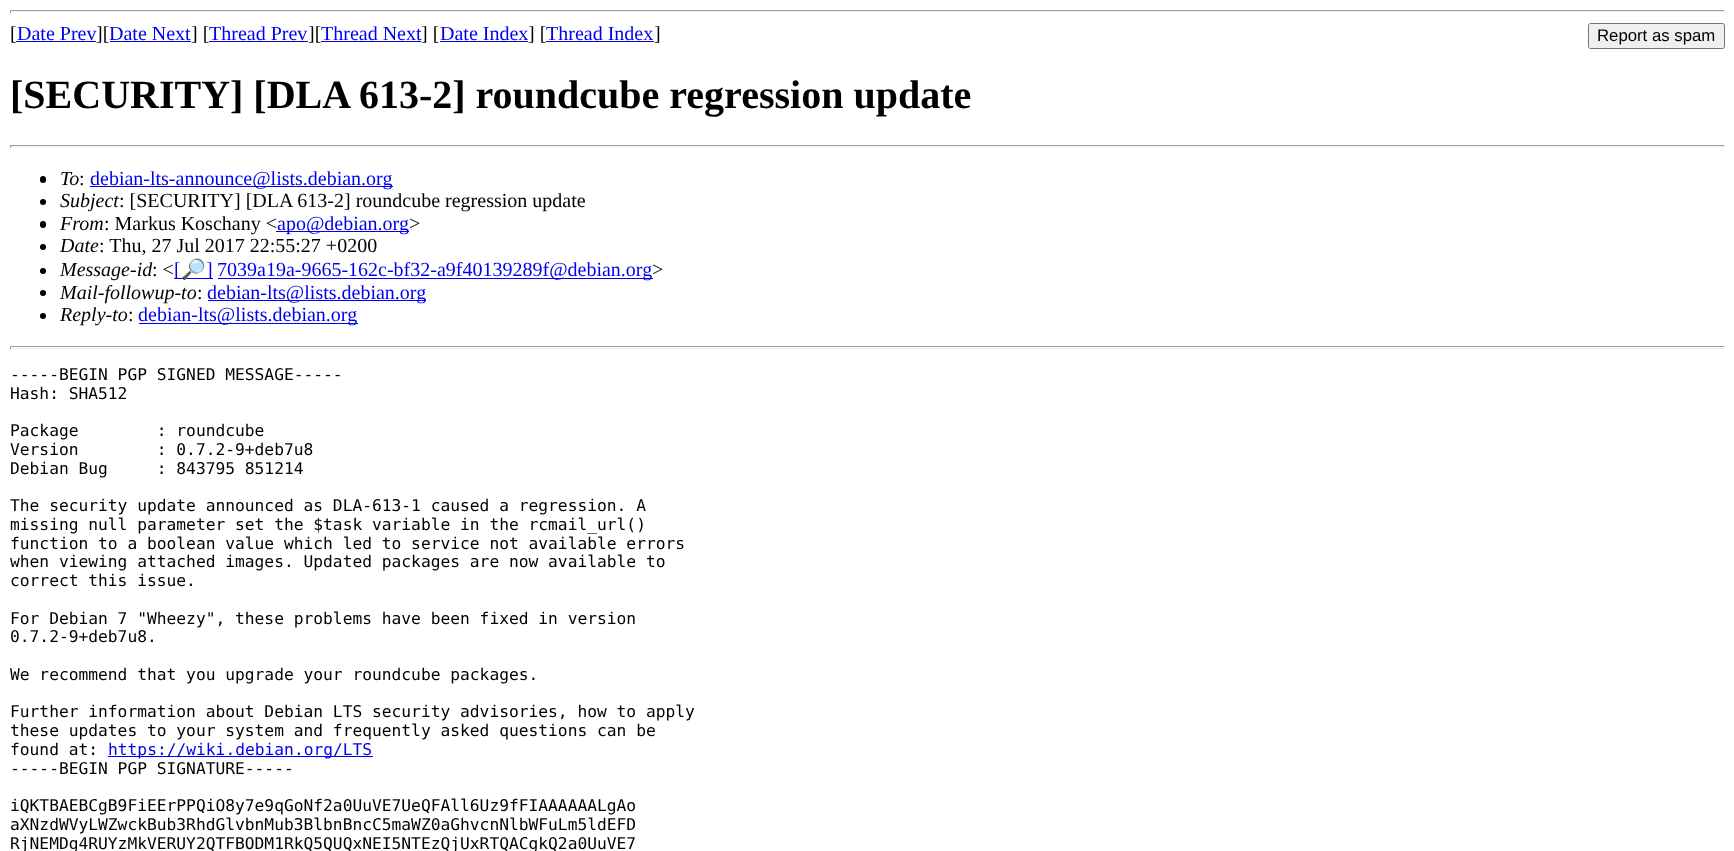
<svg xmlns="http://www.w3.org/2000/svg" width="1734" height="851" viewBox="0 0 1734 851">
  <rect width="100%" height="100%" fill="#ffffff"/>
  <rect x="10" y="10" width="1715" height="1" fill="#9f9f9f"/>
  <rect x="1724" y="10" width="1" height="3" fill="#eeeeee"/>
  <rect x="10" y="11" width="1715" height="1" fill="#eeeeee"/>
  <rect x="10" y="10" width="1" height="3" fill="#9f9f9f"/>
  <text x="10" y="40" font-family="Liberation Serif" font-size="20" fill="#000000">[</text>
  <text x="17" y="40" font-family="Liberation Serif" font-size="20" fill="#0000ee">Date Prev</text>
  <rect x="16" y="41" width="80" height="1" fill="#0000ee"/>
  <text x="96" y="40" font-family="Liberation Serif" font-size="20" fill="#000000">][</text>
  <text x="109" y="40" font-family="Liberation Serif" font-size="20" fill="#0000ee">Date Next</text>
  <rect x="110" y="41" width="81" height="1" fill="#0000ee"/>
  <text x="191" y="40" font-family="Liberation Serif" font-size="20" fill="#000000">] [</text>
  <text x="209" y="40" font-family="Liberation Serif" font-size="20" fill="#0000ee">Thread Prev</text>
  <rect x="209" y="41" width="99" height="1" fill="#0000ee"/>
  <text x="308" y="40" font-family="Liberation Serif" font-size="20" fill="#000000">][</text>
  <text x="321" y="40" font-family="Liberation Serif" font-size="20" fill="#0000ee">Thread Next</text>
  <rect x="321" y="41" width="100" height="1" fill="#0000ee"/>
  <text x="421" y="40" font-family="Liberation Serif" font-size="20" fill="#000000">] [</text>
  <text x="440" y="40" font-family="Liberation Serif" font-size="20" fill="#0000ee">Date Index</text>
  <rect x="440" y="41" width="88" height="1" fill="#0000ee"/>
  <text x="528" y="40" font-family="Liberation Serif" font-size="20" fill="#000000">] [</text>
  <text x="546" y="40" font-family="Liberation Serif" font-size="20" fill="#0000ee">Thread Index</text>
  <rect x="546" y="41" width="108" height="1" fill="#0000ee"/>
  <text x="654" y="40" font-family="Liberation Serif" font-size="20" fill="#000000">]</text>
  <rect x="1588.5" y="23.5" width="136" height="25" rx="2" fill="#efefef" stroke="#767676"/>
  <text x="1597" y="41" font-family="Liberation Sans" font-size="16.75" fill="#000000">Report as spam</text>
  <text x="10" y="108" font-family="Liberation Serif" font-size="40" font-weight="bold" fill="#000000">[SECURITY] [DLA 613-2] roundcube regression update</text>
  <rect x="10" y="145" width="1715" height="1" fill="#9f9f9f"/>
  <rect x="1724" y="145" width="1" height="3" fill="#eeeeee"/>
  <rect x="10" y="146" width="1715" height="1" fill="#eeeeee"/>
  <rect x="10" y="145" width="1" height="3" fill="#9f9f9f"/>
  <rect x="40" y="176" width="6" height="7" rx="3" fill="#000000"/>
  <text x="60" y="185" font-family="Liberation Serif" font-size="20" font-style="italic" fill="#000000">To</text>
  <text x="79" y="185" font-family="Liberation Serif" font-size="20" fill="#000000">:</text>
  <rect x="90" y="186" width="303" height="1" fill="#0000ee"/>
  <text x="90" y="185" font-family="Liberation Serif" font-size="20" fill="#0000ee">debian-lts-announce@lists.debian.org</text>
  <circle cx="43" cy="202" r="3" fill="#000000"/>
  <text x="60" y="207" font-family="Liberation Serif" font-size="20" font-style="italic" fill="#000000">Subject</text>
  <text x="119" y="207" font-family="Liberation Serif" font-size="20" fill="#000000">: [SECURITY] [DLA 613-2] roundcube regression update</text>
  <rect x="40" y="221" width="6" height="7" rx="3" fill="#000000"/>
  <text x="60" y="230" font-family="Liberation Serif" font-size="20" font-style="italic" fill="#000000">From</text>
  <text x="104" y="230" font-family="Liberation Serif" font-size="20" fill="#000000">: Markus Koschany &lt;</text>
  <rect x="276" y="231" width="133" height="1" fill="#0000ee"/>
  <text x="277" y="230" font-family="Liberation Serif" font-size="20" fill="#0000ee">apo@debian.org</text>
  <text x="409" y="230" font-family="Liberation Serif" font-size="20" fill="#000000">&gt;</text>
  <circle cx="43" cy="247" r="3" fill="#000000"/>
  <text x="60" y="252" font-family="Liberation Serif" font-size="20" font-style="italic" fill="#000000">Date</text>
  <text x="99" y="252" font-family="Liberation Serif" font-size="20" fill="#000000">: Thu, 27 Jul 2017 22:55:27 +0200</text>
  <circle cx="43" cy="271" r="3" fill="#000000"/>
  <text x="60" y="276" font-family="Liberation Serif" font-size="20" font-style="italic" fill="#000000">Message-id</text>
  <text x="152" y="276" font-family="Liberation Serif" font-size="20" fill="#000000">: &lt;</text>
  <rect x="174" y="278" width="39" height="1" fill="#0000ee"/>
  <text x="174" y="276" font-family="Liberation Serif" font-size="20" fill="#0000ee">[</text>
  <text x="181" y="276" font-family="Noto Color Emoji" font-size="20" fill="#0000ee">🔎</text>
  <text x="206" y="276" font-family="Liberation Serif" font-size="20" fill="#0000ee">]</text>
  <rect x="218" y="278" width="435" height="1" fill="#0000ee"/>
  <text x="217" y="276" font-family="Liberation Serif" font-size="20" fill="#0000ee">7039a19a-9665-162c-bf32-a9f40139289f@debian.org</text>
  <text x="652" y="276" font-family="Liberation Serif" font-size="20" fill="#000000">&gt;</text>
  <circle cx="43" cy="293" r="3" fill="#000000"/>
  <text x="60" y="299" font-family="Liberation Serif" font-size="20" font-style="italic" fill="#000000">Mail-followup-to</text>
  <text x="197" y="299" font-family="Liberation Serif" font-size="20" fill="#000000">:</text>
  <rect x="208" y="300" width="218" height="1" fill="#0000ee"/>
  <text x="207" y="299" font-family="Liberation Serif" font-size="20" fill="#0000ee">debian-lts@lists.debian.org</text>
  <circle cx="43" cy="316" r="3" fill="#000000"/>
  <text x="60" y="321" font-family="Liberation Serif" font-size="20" font-style="italic" fill="#000000">Reply-to</text>
  <text x="128" y="321" font-family="Liberation Serif" font-size="20" fill="#000000">:</text>
  <rect x="139" y="323" width="219" height="1" fill="#0000ee"/>
  <text x="138" y="321" font-family="Liberation Serif" font-size="20" fill="#0000ee">debian-lts@lists.debian.org</text>
  <rect x="10" y="346" width="1715" height="1" fill="#9f9f9f"/>
  <rect x="1724" y="346" width="1" height="3" fill="#eeeeee"/>
  <rect x="10" y="348" width="1715" height="1" fill="#eeeeee"/>
  <rect x="10" y="346" width="1" height="3" fill="#9f9f9f"/>
  <text x="10" y="380" font-family="DejaVu Sans Mono" font-size="16.25" fill="#000000">-----BEGIN PGP SIGNED MESSAGE-----</text>
  <text x="10" y="399" font-family="DejaVu Sans Mono" font-size="16.25" fill="#000000">Hash: SHA512</text>
  <text x="10" y="436" font-family="DejaVu Sans Mono" font-size="16.25" fill="#000000" xml:space="preserve">Package        : roundcube</text>
  <text x="10" y="455" font-family="DejaVu Sans Mono" font-size="16.25" fill="#000000" xml:space="preserve">Version        : 0.7.2-9+deb7u8</text>
  <text x="10" y="474" font-family="DejaVu Sans Mono" font-size="16.25" fill="#000000" xml:space="preserve">Debian Bug     : 843795 851214</text>
  <text x="10" y="511" font-family="DejaVu Sans Mono" font-size="16.25" fill="#000000">The security update announced as DLA-613-1 caused a regression. A</text>
  <text x="10" y="530" font-family="DejaVu Sans Mono" font-size="16.25" fill="#000000">missing null parameter set the $task variable in the rcmail_url()</text>
  <text x="10" y="549" font-family="DejaVu Sans Mono" font-size="16.25" fill="#000000">function to a boolean value which led to service not available errors</text>
  <text x="10" y="567" font-family="DejaVu Sans Mono" font-size="16.25" fill="#000000">when viewing attached images. Updated packages are now available to</text>
  <text x="10" y="586" font-family="DejaVu Sans Mono" font-size="16.25" fill="#000000">correct this issue.</text>
  <text x="10" y="624" font-family="DejaVu Sans Mono" font-size="16.25" fill="#000000">For Debian 7 "Wheezy", these problems have been fixed in version</text>
  <text x="10" y="642" font-family="DejaVu Sans Mono" font-size="16.25" fill="#000000">0.7.2-9+deb7u8.</text>
  <text x="10" y="680" font-family="DejaVu Sans Mono" font-size="16.25" fill="#000000">We recommend that you upgrade your roundcube packages.</text>
  <text x="10" y="717" font-family="DejaVu Sans Mono" font-size="16.25" fill="#000000">Further information about Debian LTS security advisories, how to apply</text>
  <text x="10" y="736" font-family="DejaVu Sans Mono" font-size="16.25" fill="#000000">these updates to your system and frequently asked questions can be</text>
  <text x="10" y="755" font-family="DejaVu Sans Mono" font-size="16.25" fill="#000000">found at:</text>
  <rect x="108" y="756" width="265" height="1" fill="#0000ee"/>
  <text x="108" y="755" font-family="DejaVu Sans Mono" font-size="16.25" fill="#0000ee">https://wiki.debian.org/LTS</text>
  <text x="10" y="774" font-family="DejaVu Sans Mono" font-size="16.25" fill="#000000">-----BEGIN PGP SIGNATURE-----</text>
  <text x="10" y="811" font-family="DejaVu Sans Mono" font-size="16.25" fill="#000000">iQKTBAEBCgB9FiEErPPQiO8y7e9qGoNf2a0UuVE7UeQFAll6Uz9fFIAAAAAALgAo</text>
  <text x="10" y="830" font-family="DejaVu Sans Mono" font-size="16.25" fill="#000000">aXNzdWVyLWZwckBub3RhdGlvbnMub3BlbnBncC5maWZ0aGhvcnNlbWFuLm5ldEFD</text>
  <text x="10" y="849" font-family="DejaVu Sans Mono" font-size="16.25" fill="#000000">RjNEMDg4RUYzMkVERUY2QTFBODM1RkQ5QUQxNEI5NTEzQjUxRTQACgkQ2a0UuVE7</text>
</svg>
